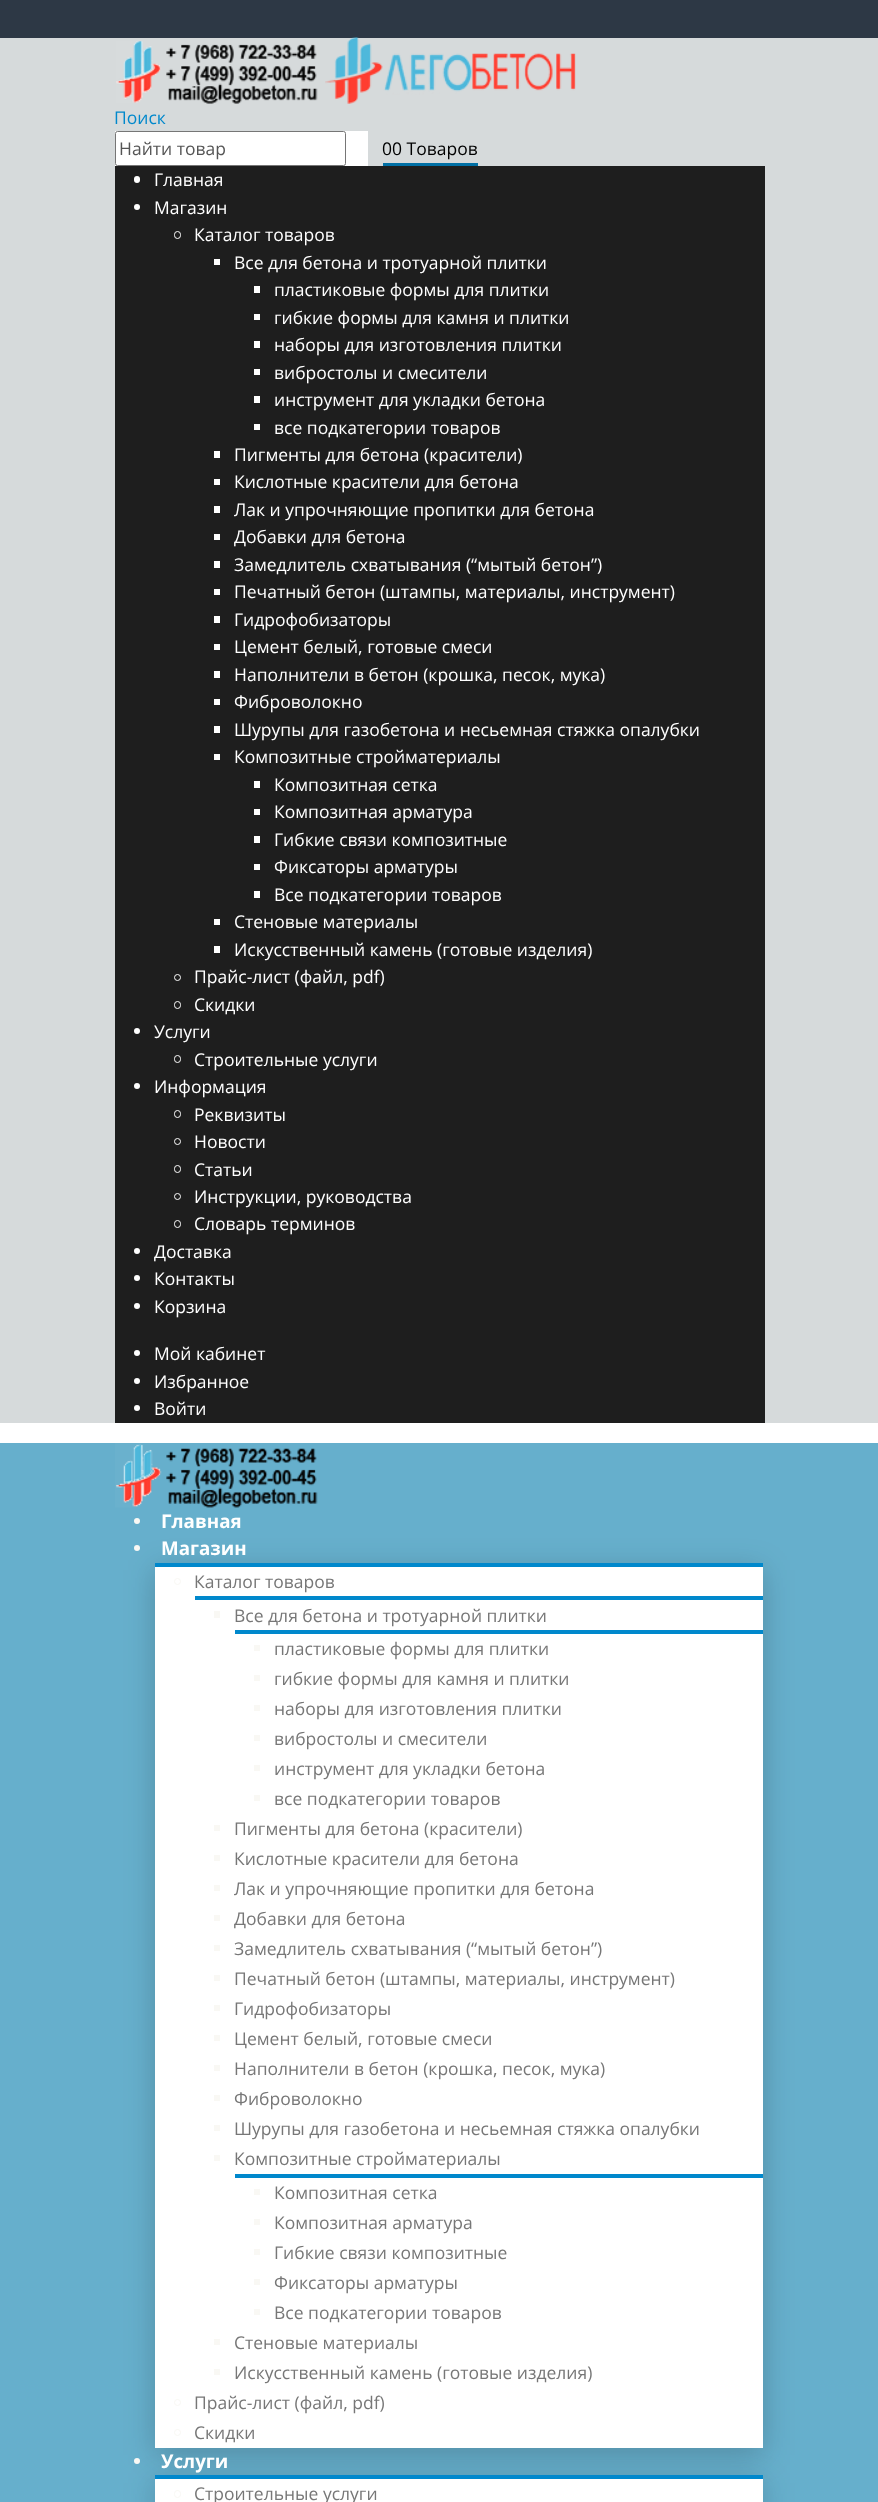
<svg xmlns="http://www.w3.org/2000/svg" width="878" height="2502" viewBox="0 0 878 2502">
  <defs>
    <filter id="blur1" x="-50%" y="-200%" width="200%" height="500%"><feGaussianBlur stdDeviation="15.5"/></filter>
  </defs>
  <rect width="100%" height="100%" fill="#ffffff"/>
  <rect x="0" y="0" width="878" height="38" fill="#2d3845"/>
  <rect x="0" y="38" width="878" height="1385" fill="#d6dadb"/>
  <image x="116" y="41" width="202" height="63" href="img1.png"/>
  <image x="325" y="37" width="251" height="67" href="img2.png"/>
  <text x="114" y="124" font-family="Open Sans" font-size="17.5" fill="#0088cc">Поиск</text>
  <rect x="115" y="131" width="253" height="35" fill="#ffffff"/>
  <rect x="115.5" y="131.5" width="230" height="34" rx="2" fill="none" stroke="#767676"/>
  <text x="119" y="155" font-family="Open Sans" font-size="17.5" fill="#555555">Найти товар</text>
  <text x="382" y="155" font-family="Open Sans" font-size="17.5" fill="#000000">00 Товаров</text>
  <rect x="383" y="163" width="95" height="3" fill="#006fa4"/>
  <rect x="115" y="166" width="650" height="1257" fill="#1e1e1e"/>
  <rect x="134" y="176" width="6" height="7" rx="3" fill="#ffffff"/>
  <text x="154" y="186" font-family="Open Sans" font-size="17.5" fill="#ffffff">Главная</text>
  <circle cx="137" cy="207" r="3" fill="#ffffff"/>
  <text x="154" y="214" font-family="Open Sans" font-size="17.5" fill="#ffffff">Магазин</text>
  <rect x="174.5" y="231.5" width="6" height="7" rx="3" fill="none" stroke="#ffffff"/>
  <text x="194" y="241" font-family="Open Sans" font-size="17.5" fill="#ffffff">Каталог товаров</text>
  <rect x="214" y="259" width="6" height="6" fill="#ffffff"/>
  <text x="234" y="269" font-family="Open Sans" font-size="17.5" fill="#ffffff">Все для бетона и тротуарной плитки</text>
  <rect x="254" y="286" width="6" height="7" fill="#ffffff"/>
  <text x="274" y="296" font-family="Open Sans" font-size="17.5" fill="#ffffff">пластиковые формы для плитки</text>
  <rect x="254" y="314" width="6" height="6" fill="#ffffff"/>
  <text x="274" y="324" font-family="Open Sans" font-size="17.5" fill="#ffffff">гибкие формы для камня и плитки</text>
  <rect x="254" y="341" width="6" height="7" fill="#ffffff"/>
  <text x="274" y="351" font-family="Open Sans" font-size="17.5" fill="#ffffff">наборы для изготовления плитки</text>
  <rect x="254" y="369" width="6" height="6" fill="#ffffff"/>
  <text x="274" y="379" font-family="Open Sans" font-size="17.5" fill="#ffffff">вибростолы и смесители</text>
  <rect x="254" y="396" width="6" height="7" fill="#ffffff"/>
  <text x="274" y="406" font-family="Open Sans" font-size="17.5" fill="#ffffff">инструмент для укладки бетона</text>
  <rect x="254" y="424" width="6" height="6" fill="#ffffff"/>
  <text x="274" y="434" font-family="Open Sans" font-size="17.5" fill="#ffffff">все подкатегории товаров</text>
  <rect x="214" y="451" width="6" height="7" fill="#ffffff"/>
  <text x="234" y="461" font-family="Open Sans" font-size="17.5" fill="#ffffff">Пигменты для бетона (красители)</text>
  <rect x="214" y="479" width="6" height="6" fill="#ffffff"/>
  <text x="234" y="488" font-family="Open Sans" font-size="17.5" fill="#ffffff">Кислотные красители для бетона</text>
  <rect x="214" y="506" width="6" height="7" fill="#ffffff"/>
  <text x="234" y="516" font-family="Open Sans" font-size="17.5" fill="#ffffff">Лак и упрочняющие пропитки для бетона</text>
  <rect x="214" y="534" width="6" height="6" fill="#ffffff"/>
  <text x="234" y="543" font-family="Open Sans" font-size="17.5" fill="#ffffff">Добавки для бетона</text>
  <rect x="214" y="561" width="6" height="7" fill="#ffffff"/>
  <text x="234" y="571" font-family="Open Sans" font-size="17.5" fill="#ffffff">Замедлитель схватывания (“мытый бетон”)</text>
  <rect x="214" y="589" width="6" height="6" fill="#ffffff"/>
  <text x="234" y="598" font-family="Open Sans" font-size="17.5" fill="#ffffff">Печатный бетон (штампы, материалы, инструмент)</text>
  <rect x="214" y="616" width="6" height="7" fill="#ffffff"/>
  <text x="234" y="626" font-family="Open Sans" font-size="17.5" fill="#ffffff">Гидрофобизаторы</text>
  <rect x="214" y="644" width="6" height="6" fill="#ffffff"/>
  <text x="234" y="653" font-family="Open Sans" font-size="17.5" fill="#ffffff">Цемент белый, готовые смеси</text>
  <rect x="214" y="671" width="6" height="7" fill="#ffffff"/>
  <text x="234" y="681" font-family="Open Sans" font-size="17.5" fill="#ffffff">Наполнители в бетон (крошка, песок, мука)</text>
  <rect x="214" y="699" width="6" height="6" fill="#ffffff"/>
  <text x="234" y="708" font-family="Open Sans" font-size="17.5" fill="#ffffff">Фиброволокно</text>
  <rect x="214" y="726" width="6" height="7" fill="#ffffff"/>
  <text x="234" y="736" font-family="Open Sans" font-size="17.5" fill="#ffffff">Шурупы для газобетона и несьемная стяжка опалубки</text>
  <rect x="214" y="754" width="6" height="6" fill="#ffffff"/>
  <text x="234" y="763" font-family="Open Sans" font-size="17.5" fill="#ffffff">Композитные стройматериалы</text>
  <rect x="254" y="781" width="6" height="7" fill="#ffffff"/>
  <text x="274" y="791" font-family="Open Sans" font-size="17.5" fill="#ffffff">Композитная сетка</text>
  <rect x="254" y="809" width="6" height="6" fill="#ffffff"/>
  <text x="274" y="818" font-family="Open Sans" font-size="17.5" fill="#ffffff">Композитная арматура</text>
  <rect x="254" y="836" width="6" height="7" fill="#ffffff"/>
  <text x="274" y="846" font-family="Open Sans" font-size="17.5" fill="#ffffff">Гибкие связи композитные</text>
  <rect x="254" y="864" width="6" height="6" fill="#ffffff"/>
  <text x="274" y="873" font-family="Open Sans" font-size="17.5" fill="#ffffff">Фиксаторы арматуры</text>
  <rect x="254" y="891" width="6" height="7" fill="#ffffff"/>
  <text x="274" y="901" font-family="Open Sans" font-size="17.5" fill="#ffffff">Все подкатегории товаров</text>
  <rect x="214" y="919" width="6" height="6" fill="#ffffff"/>
  <text x="234" y="928" font-family="Open Sans" font-size="17.5" fill="#ffffff">Стеновые материалы</text>
  <rect x="214" y="946" width="6" height="7" fill="#ffffff"/>
  <text x="234" y="956" font-family="Open Sans" font-size="17.5" fill="#ffffff">Искусственный камень (готовые изделия)</text>
  <circle cx="177.5" cy="977.5" r="3" fill="none" stroke="#ffffff"/>
  <text x="194" y="983" font-family="Open Sans" font-size="17.5" fill="#ffffff">Прайс-лист (файл, pdf)</text>
  <rect x="174.5" y="1001.5" width="6" height="7" rx="3" fill="none" stroke="#ffffff"/>
  <text x="194" y="1011" font-family="Open Sans" font-size="17.5" fill="#ffffff">Скидки</text>
  <circle cx="137" cy="1031" r="3" fill="#ffffff"/>
  <text x="154" y="1038" font-family="Open Sans" font-size="17.5" fill="#ffffff">Услуги</text>
  <rect x="174.5" y="1055.5" width="6" height="7" rx="3" fill="none" stroke="#ffffff"/>
  <text x="194" y="1066" font-family="Open Sans" font-size="17.5" fill="#ffffff">Строительные услуги</text>
  <circle cx="137" cy="1086" r="3" fill="#ffffff"/>
  <text x="154" y="1093" font-family="Open Sans" font-size="17.5" fill="#ffffff">Информация</text>
  <rect x="174.5" y="1110.5" width="6" height="7" rx="3" fill="none" stroke="#ffffff"/>
  <text x="194" y="1121" font-family="Open Sans" font-size="17.5" fill="#ffffff">Реквизиты</text>
  <circle cx="177.5" cy="1141.5" r="3" fill="none" stroke="#ffffff"/>
  <text x="194" y="1148" font-family="Open Sans" font-size="17.5" fill="#ffffff">Новости</text>
  <rect x="174.5" y="1165.5" width="6" height="7" rx="3" fill="none" stroke="#ffffff"/>
  <text x="194" y="1176" font-family="Open Sans" font-size="17.5" fill="#ffffff">Статьи</text>
  <circle cx="177.5" cy="1196.5" r="3" fill="none" stroke="#ffffff"/>
  <text x="194" y="1203" font-family="Open Sans" font-size="17.5" fill="#ffffff">Инструкции, руководства</text>
  <rect x="174.5" y="1220.5" width="6" height="7" rx="3" fill="none" stroke="#ffffff"/>
  <text x="194" y="1230" font-family="Open Sans" font-size="17.5" fill="#ffffff">Словарь терминов</text>
  <circle cx="137" cy="1251" r="3" fill="#ffffff"/>
  <text x="154" y="1258" font-family="Open Sans" font-size="17.5" fill="#ffffff">Доставка</text>
  <circle cx="137" cy="1278" r="3" fill="#ffffff"/>
  <text x="154" y="1285" font-family="Open Sans" font-size="17.5" fill="#ffffff">Контакты</text>
  <circle cx="137" cy="1306" r="3" fill="#ffffff"/>
  <text x="154" y="1313" font-family="Open Sans" font-size="17.5" fill="#ffffff">Корзина</text>
  <circle cx="137" cy="1353" r="3" fill="#ffffff"/>
  <text x="154" y="1360" font-family="Open Sans" font-size="17.5" fill="#ffffff">Мой кабинет</text>
  <circle cx="137" cy="1381" r="3" fill="#ffffff"/>
  <text x="154" y="1388" font-family="Open Sans" font-size="17.5" fill="#ffffff">Избранное</text>
  <circle cx="137" cy="1408" r="3" fill="#ffffff"/>
  <text x="154" y="1415" font-family="Open Sans" font-size="17.5" fill="#ffffff">Войти</text>
  <rect x="0" y="1443" width="878" height="1059" fill="#66afcc"/>
  <image x="115" y="1443" width="203" height="65" href="img3.png"/>
  <rect x="155" y="1570" width="608" height="885" fill="#000000" fill-opacity="0.2" filter="url(#blur1)"/>
  <circle cx="137" cy="1521" r="3" fill="#f9f8f4"/>
  <text x="161" y="1528" font-family="Open Sans" font-size="18.75" font-weight="bold" fill="#ffffff">Главная</text>
  <circle cx="137" cy="1548" r="3" fill="#f9f8f4"/>
  <text x="161" y="1555" font-family="Open Sans" font-size="18.75" font-weight="bold" fill="#ffffff">Магазин</text>
  <rect x="155" y="1567" width="608" height="881" fill="#ffffff"/>
  <rect x="155" y="1563" width="608" height="4" fill="#0088cc"/>
  <circle cx="177.5" cy="1581.5" r="3" fill="none" stroke="#f9f8f4"/>
  <text x="194" y="1588" font-family="Open Sans" font-size="17.5" fill="#777777">Каталог товаров</text>
  <rect x="195" y="1596" width="568" height="4" fill="#0088cc"/>
  <rect x="214" y="1611" width="6" height="7" fill="#f9f8f4"/>
  <text x="234" y="1622" font-family="Open Sans" font-size="17.5" fill="#777777">Все для бетона и тротуарной плитки</text>
  <rect x="235" y="1630" width="528" height="4" fill="#0088cc"/>
  <rect x="254" y="1645" width="6" height="6" fill="#f9f8f4"/>
  <text x="274" y="1655" font-family="Open Sans" font-size="17.5" fill="#777777">пластиковые формы для плитки</text>
  <rect x="254" y="1675" width="6" height="6" fill="#f9f8f4"/>
  <text x="274" y="1685" font-family="Open Sans" font-size="17.5" fill="#777777">гибкие формы для камня и плитки</text>
  <rect x="254" y="1705" width="6" height="6" fill="#f9f8f4"/>
  <text x="274" y="1715" font-family="Open Sans" font-size="17.5" fill="#777777">наборы для изготовления плитки</text>
  <rect x="254" y="1735" width="6" height="6" fill="#f9f8f4"/>
  <text x="274" y="1745" font-family="Open Sans" font-size="17.5" fill="#777777">вибростолы и смесители</text>
  <rect x="254" y="1765" width="6" height="6" fill="#f9f8f4"/>
  <text x="274" y="1775" font-family="Open Sans" font-size="17.5" fill="#777777">инструмент для укладки бетона</text>
  <rect x="254" y="1795" width="6" height="6" fill="#f9f8f4"/>
  <text x="274" y="1805" font-family="Open Sans" font-size="17.5" fill="#777777">все подкатегории товаров</text>
  <rect x="214" y="1825" width="6" height="6" fill="#f9f8f4"/>
  <text x="234" y="1835" font-family="Open Sans" font-size="17.5" fill="#777777">Пигменты для бетона (красители)</text>
  <rect x="214" y="1855" width="6" height="6" fill="#f9f8f4"/>
  <text x="234" y="1865" font-family="Open Sans" font-size="17.5" fill="#777777">Кислотные красители для бетона</text>
  <rect x="214" y="1885" width="6" height="6" fill="#f9f8f4"/>
  <text x="234" y="1895" font-family="Open Sans" font-size="17.5" fill="#777777">Лак и упрочняющие пропитки для бетона</text>
  <rect x="214" y="1915" width="6" height="6" fill="#f9f8f4"/>
  <text x="234" y="1925" font-family="Open Sans" font-size="17.5" fill="#777777">Добавки для бетона</text>
  <rect x="214" y="1945" width="6" height="6" fill="#f9f8f4"/>
  <text x="234" y="1955" font-family="Open Sans" font-size="17.5" fill="#777777">Замедлитель схватывания (“мытый бетон”)</text>
  <rect x="214" y="1975" width="6" height="6" fill="#f9f8f4"/>
  <text x="234" y="1985" font-family="Open Sans" font-size="17.5" fill="#777777">Печатный бетон (штампы, материалы, инструмент)</text>
  <rect x="214" y="2005" width="6" height="6" fill="#f9f8f4"/>
  <text x="234" y="2015" font-family="Open Sans" font-size="17.5" fill="#777777">Гидрофобизаторы</text>
  <rect x="214" y="2035" width="6" height="6" fill="#f9f8f4"/>
  <text x="234" y="2045" font-family="Open Sans" font-size="17.5" fill="#777777">Цемент белый, готовые смеси</text>
  <rect x="214" y="2065" width="6" height="6" fill="#f9f8f4"/>
  <text x="234" y="2075" font-family="Open Sans" font-size="17.5" fill="#777777">Наполнители в бетон (крошка, песок, мука)</text>
  <rect x="214" y="2095" width="6" height="6" fill="#f9f8f4"/>
  <text x="234" y="2105" font-family="Open Sans" font-size="17.5" fill="#777777">Фиброволокно</text>
  <rect x="214" y="2125" width="6" height="6" fill="#f9f8f4"/>
  <text x="234" y="2135" font-family="Open Sans" font-size="17.5" fill="#777777">Шурупы для газобетона и несьемная стяжка опалубки</text>
  <rect x="214" y="2155" width="6" height="6" fill="#f9f8f4"/>
  <text x="234" y="2165" font-family="Open Sans" font-size="17.5" fill="#777777">Композитные стройматериалы</text>
  <rect x="235" y="2174" width="528" height="4" fill="#0088cc"/>
  <rect x="254" y="2189" width="6" height="6" fill="#f9f8f4"/>
  <text x="274" y="2199" font-family="Open Sans" font-size="17.5" fill="#777777">Композитная сетка</text>
  <rect x="254" y="2219" width="6" height="6" fill="#f9f8f4"/>
  <text x="274" y="2229" font-family="Open Sans" font-size="17.5" fill="#777777">Композитная арматура</text>
  <rect x="254" y="2249" width="6" height="6" fill="#f9f8f4"/>
  <text x="274" y="2259" font-family="Open Sans" font-size="17.5" fill="#777777">Гибкие связи композитные</text>
  <rect x="254" y="2279" width="6" height="6" fill="#f9f8f4"/>
  <text x="274" y="2289" font-family="Open Sans" font-size="17.5" fill="#777777">Фиксаторы арматуры</text>
  <rect x="254" y="2309" width="6" height="6" fill="#f9f8f4"/>
  <text x="274" y="2319" font-family="Open Sans" font-size="17.5" fill="#777777">Все подкатегории товаров</text>
  <rect x="214" y="2339" width="6" height="6" fill="#f9f8f4"/>
  <text x="234" y="2349" font-family="Open Sans" font-size="17.5" fill="#777777">Стеновые материалы</text>
  <rect x="214" y="2369" width="6" height="6" fill="#f9f8f4"/>
  <text x="234" y="2379" font-family="Open Sans" font-size="17.5" fill="#777777">Искусственный камень (готовые изделия)</text>
  <circle cx="177.5" cy="2402.5" r="3" fill="none" stroke="#f9f8f4"/>
  <text x="194" y="2409" font-family="Open Sans" font-size="17.5" fill="#777777">Прайс-лист (файл, pdf)</text>
  <rect x="155" y="2483" width="608" height="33" fill="#000000" fill-opacity="0.2" filter="url(#blur1)"/>
  <circle cx="177.5" cy="2432.5" r="3" fill="none" stroke="#f9f8f4"/>
  <text x="194" y="2439" font-family="Open Sans" font-size="17.5" fill="#777777">Скидки</text>
  <circle cx="137" cy="2461" r="3" fill="#f9f8f4"/>
  <text x="161" y="2468" font-family="Open Sans" font-size="18.75" font-weight="bold" fill="#ffffff">Услуги</text>
  <rect x="155" y="2479" width="608" height="23" fill="#ffffff"/>
  <rect x="155" y="2475" width="608" height="4" fill="#0088cc"/>
  <rect x="174.5" y="2490.5" width="6" height="7" rx="3" fill="none" stroke="#f9f8f4"/>
  <text x="194" y="2500" font-family="Open Sans" font-size="17.5" fill="#777777">Строительные услуги</text>
</svg>
